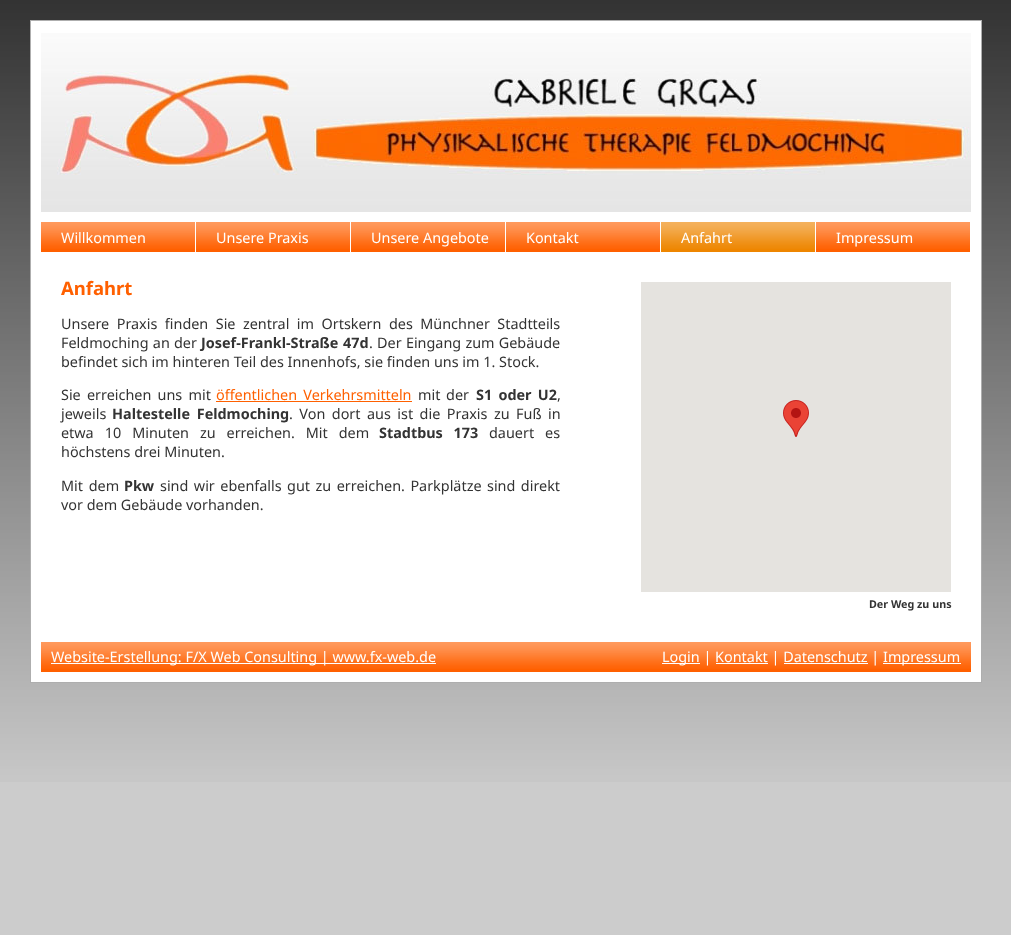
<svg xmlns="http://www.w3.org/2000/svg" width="1011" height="935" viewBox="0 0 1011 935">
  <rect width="100%" height="100%" fill="#cccccc"/>
  <image x="0" y="0" width="1011" height="782" href="img1.png"/>
  <rect x="30.5" y="20.5" width="951" height="662" fill="#ffffff" stroke="#aeaeae"/>
  <image x="41" y="33" width="930" height="179" href="img2.png"/>
  <rect x="41" y="222" width="929" height="30" fill="#ff6000"/>
  <image x="41" y="222" width="154" height="27" href="img3.png"/>
  <rect x="195" y="222" width="1" height="30" fill="#ffffff"/>
  <text x="61" y="243" font-family="Noto Sans" font-size="14.4" fill="#ffffff">Willkommen</text>
  <image x="196" y="222" width="154" height="27" href="img3.png"/>
  <rect x="350" y="222" width="1" height="30" fill="#ffffff"/>
  <text x="216" y="243" font-family="Noto Sans" font-size="14.4" fill="#ffffff">Unsere Praxis</text>
  <image x="351" y="222" width="154" height="27" href="img3.png"/>
  <rect x="505" y="222" width="1" height="30" fill="#ffffff"/>
  <text x="371" y="243" font-family="Noto Sans" font-size="14.4" fill="#ffffff">Unsere Angebote</text>
  <image x="506" y="222" width="154" height="27" href="img3.png"/>
  <rect x="660" y="222" width="1" height="30" fill="#ffffff"/>
  <text x="526" y="243" font-family="Noto Sans" font-size="14.4" fill="#ffffff">Kontakt</text>
  <rect x="661" y="222" width="154" height="30" fill="#ee8600"/>
  <image x="661" y="222" width="154" height="27" href="img4.png"/>
  <rect x="815" y="222" width="1" height="30" fill="#ffffff"/>
  <text x="681" y="243" font-family="Noto Sans" font-size="14.4" fill="#ffffff">Anfahrt</text>
  <image x="816" y="222" width="154" height="27" href="img3.png"/>
  <text x="836" y="243" font-family="Noto Sans" font-size="14.4" fill="#ffffff">Impressum</text>
  <text x="61" y="295" font-family="Noto Sans" font-size="18.5" font-weight="bold" fill="#ff6000">Anfahrt</text>
  <text x="61" y="329" word-spacing="3.75" font-family="Noto Sans" font-size="14.4" fill="#333333">Unsere Praxis finden Sie zentral im Ortskern des Münchner Stadtteils</text>
  <text x="61" y="348" word-spacing="0.5" font-family="Noto Sans" font-size="14.4" fill="#333333">Feldmoching an der</text>
  <text x="201" y="348" word-spacing="1" font-family="Noto Sans" font-size="14.4" font-weight="bold" fill="#333333">Josef-Frankl-Straße 47d</text>
  <text x="369" y="348" word-spacing="0.5" font-family="Noto Sans" font-size="14.4" fill="#333333">. Der Eingang zum Gebäude</text>
  <text x="61" y="367" font-family="Noto Sans" font-size="14.4" fill="#333333">befindet sich im hinteren Teil des Innenhofs, sie finden uns im 1. Stock.</text>
  <text x="61" y="400" word-spacing="2.5" font-family="Noto Sans" font-size="14.4" fill="#333333">Sie erreichen uns mit</text>
  <text x="216" y="400" word-spacing="2.5" font-family="Noto Sans" font-size="14.4" fill="#ff6000">öffentlichen Verkehrsmitteln</text>
  <rect x="216" y="401" width="196" height="1" fill="#ff6000"/>
  <text x="418" y="400" word-spacing="2" font-family="Noto Sans" font-size="14.4" fill="#333333">mit der</text>
  <text x="476" y="400" word-spacing="2.5" font-family="Noto Sans" font-size="14.4" font-weight="bold" fill="#333333">S1 oder U2</text>
  <text x="557" y="400" font-family="Noto Sans" font-size="14.4" fill="#333333">,</text>
  <text x="61" y="419" font-family="Noto Sans" font-size="14.4" fill="#333333">jeweils</text>
  <text x="112" y="419" word-spacing="3" font-family="Noto Sans" font-size="14.4" font-weight="bold" fill="#333333">Haltestelle Feldmoching</text>
  <text x="289" y="419" word-spacing="2.75" font-family="Noto Sans" font-size="14.4" fill="#333333">. Von dort aus ist die Praxis zu Fuß in</text>
  <text x="61" y="438" word-spacing="7.25" font-family="Noto Sans" font-size="14.4" fill="#333333">etwa 10 Minuten zu erreichen. Mit dem</text>
  <text x="379" y="438" word-spacing="7" font-family="Noto Sans" font-size="14.4" font-weight="bold" fill="#333333">Stadtbus 173</text>
  <text x="489" y="438" word-spacing="7.25" font-family="Noto Sans" font-size="14.4" fill="#333333">dauert es</text>
  <text x="61" y="457" font-family="Noto Sans" font-size="14.4" fill="#333333">höchstens drei Minuten.</text>
  <text x="61" y="491" word-spacing="2" font-family="Noto Sans" font-size="14.4" fill="#333333">Mit dem</text>
  <text x="124" y="491" font-family="Noto Sans" font-size="14.4" font-weight="bold" fill="#333333">Pkw</text>
  <text x="160" y="491" word-spacing="1.75" font-family="Noto Sans" font-size="14.4" fill="#333333">sind wir ebenfalls gut zu erreichen. Parkplätze sind direkt</text>
  <text x="61" y="510" font-family="Noto Sans" font-size="14.4" fill="#333333">vor dem Gebäude vorhanden.</text>
  <rect x="641" y="282" width="310" height="310" fill="#e5e3df"/>
  <image x="783" y="400" width="26" height="37" href="img5.png"/>
  <text x="869" y="608" font-family="Noto Sans" font-size="10.75" font-weight="bold" fill="#333333">Der Weg zu uns</text>
  <rect x="41" y="642" width="930" height="30" fill="#ff6000"/>
  <image x="41" y="642" width="558" height="27" href="img6.png"/>
  <rect x="51" y="663" width="385" height="1" fill="#ffffff"/>
  <text x="51" y="662" font-family="Noto Sans" font-size="14.4" fill="#ffffff">Website-Erstellung: F/X Web Consulting | www.fx-web.de</text>
  <image x="599" y="642" width="372" height="27" href="img7.png"/>
  <rect x="662" y="663" width="38" height="1" fill="#ffffff"/>
  <text x="662" y="662" font-family="Noto Sans" font-size="14.4" fill="#ffffff">Login | Kontakt | Datenschutz |</text>
  <rect x="883" y="663" width="78" height="1" fill="#ffffff"/>
  <text x="883" y="662" font-family="Noto Sans" font-size="14.4" fill="#ffffff">Impressum</text>
  <rect x="716" y="663" width="52" height="1" fill="#ffffff"/>
  <rect x="784" y="663" width="84" height="1" fill="#ffffff"/>
</svg>
